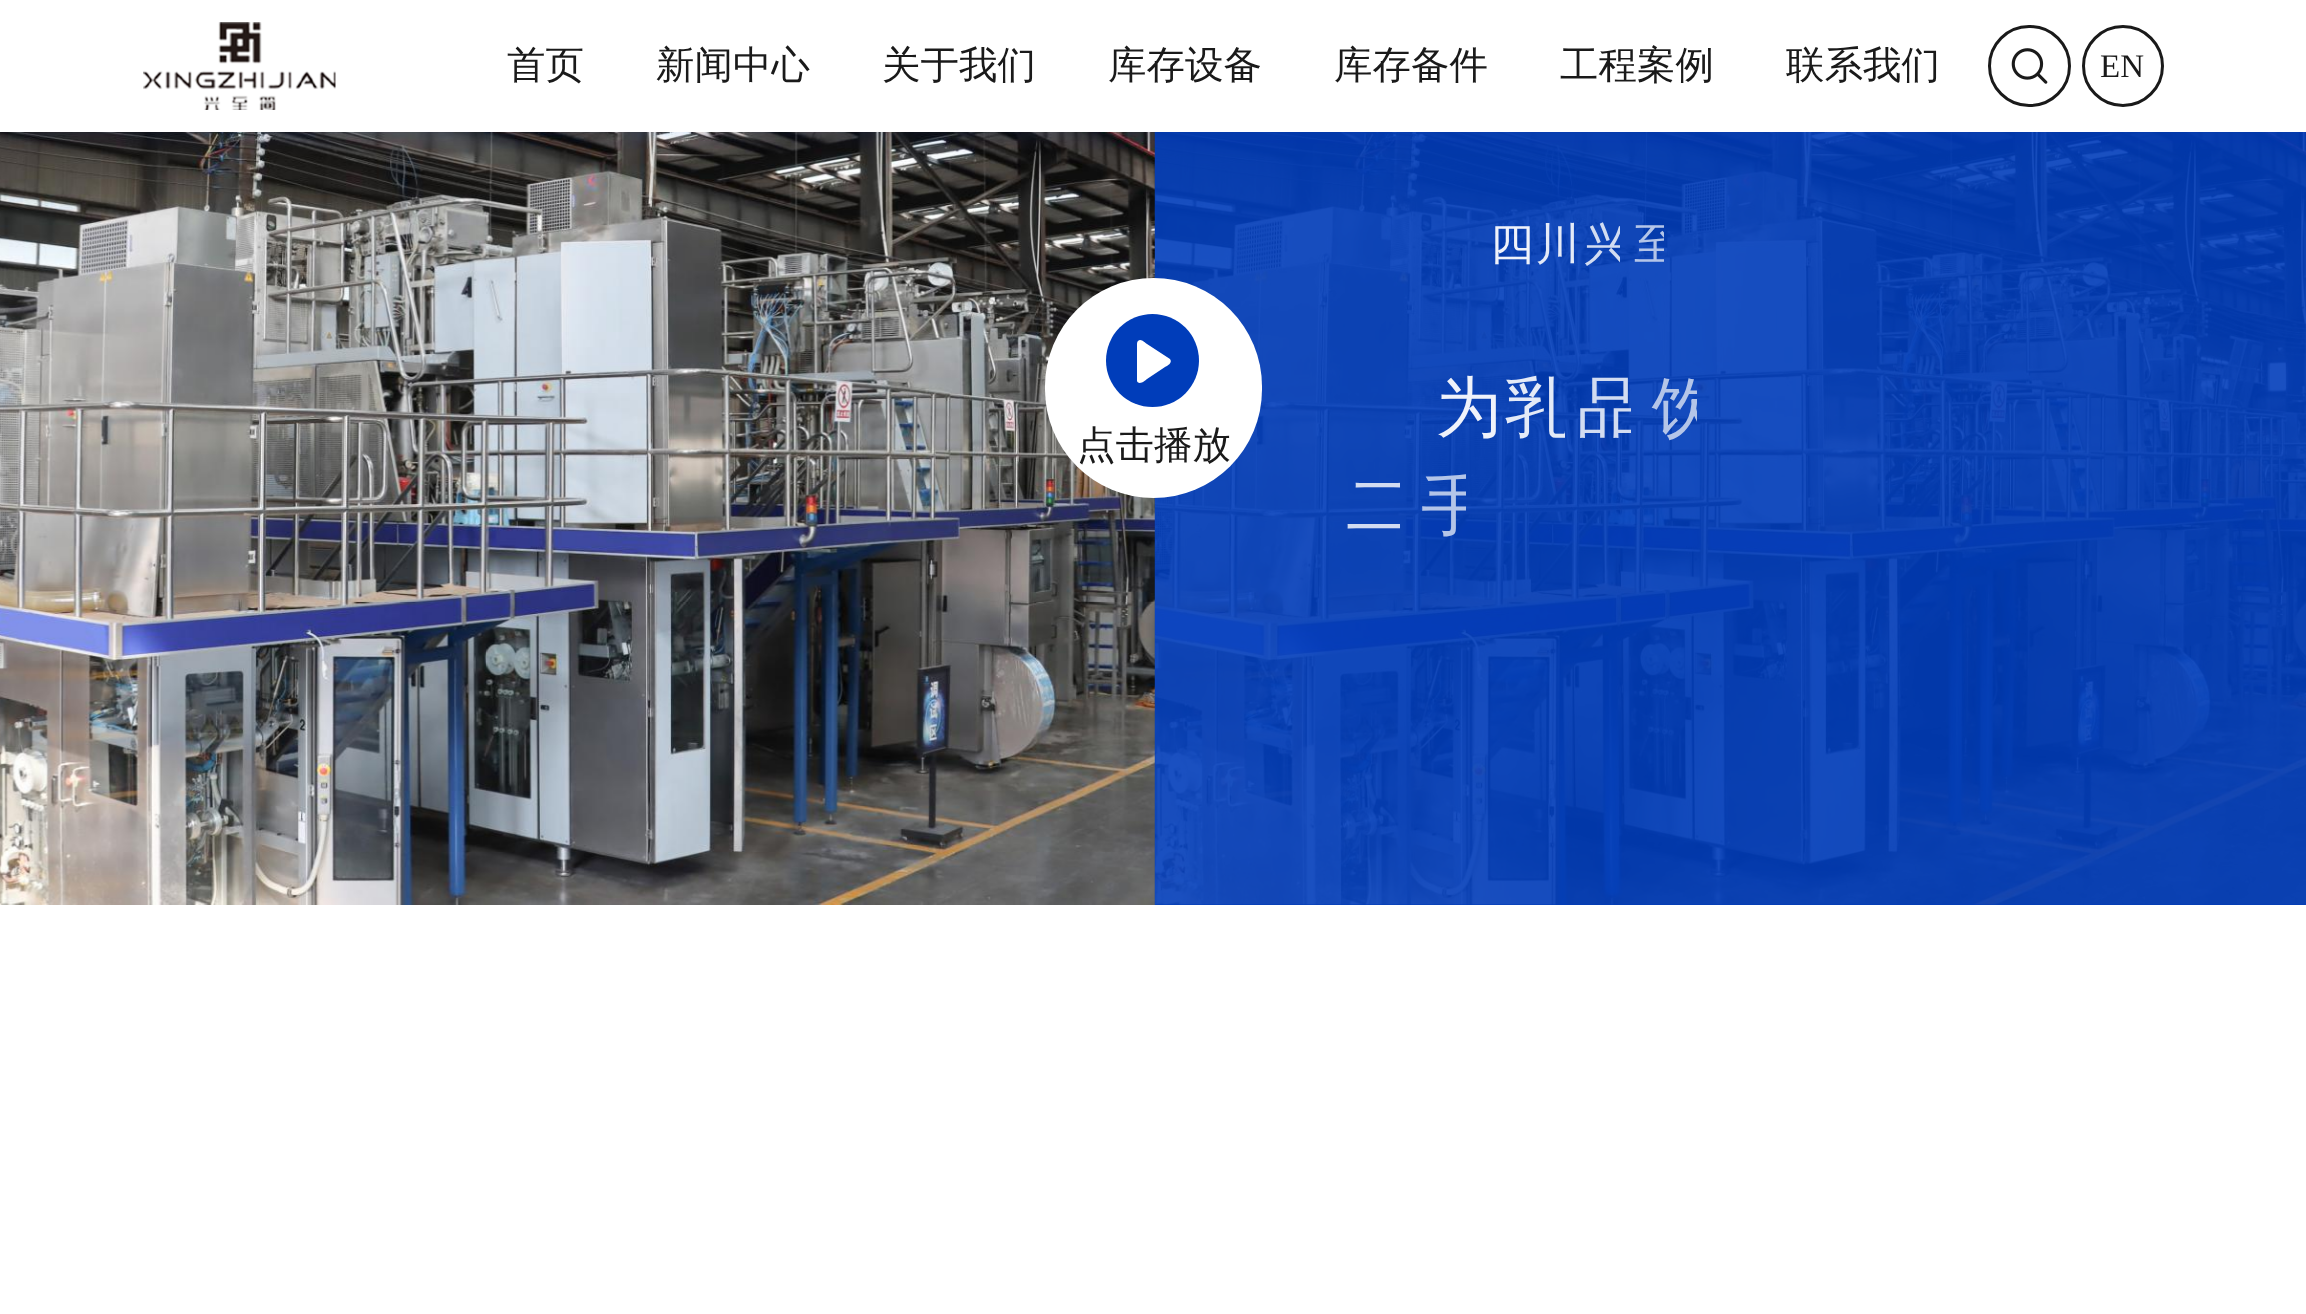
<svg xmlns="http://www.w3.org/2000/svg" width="2306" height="1314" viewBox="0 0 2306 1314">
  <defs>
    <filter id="blur1" x="-50%" y="-200%" width="200%" height="500%"><feGaussianBlur stdDeviation="12"/></filter>
    <clipPath id="clip1"><rect x="1576" y="212" width="44" height="66"/></clipPath>
    <clipPath id="clip2"><rect x="1620" y="212" width="44" height="66"/></clipPath>
    <clipPath id="clip3"><rect x="1499" y="369" width="66" height="79"/></clipPath>
    <clipPath id="clip4"><rect x="1565" y="369" width="66" height="79"/></clipPath>
    <clipPath id="clip5"><rect x="1631" y="369" width="66" height="79"/></clipPath>
    <clipPath id="clip6"><rect x="1334" y="468" width="66" height="79"/></clipPath>
    <clipPath id="clip7"><rect x="1400" y="468" width="66" height="79"/></clipPath>
  </defs>
  <rect width="100%" height="100%" fill="#ffffff"/>
  <rect x="1154" y="132" width="1152" height="773" fill="#003dba"/>
  <image x="0" y="132" width="1155" height="773" href="img3.png"/>
  <image x="1155" y="132" width="1151" height="773" href="img4.png"/>
  <rect x="0" y="0" width="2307" height="132" fill="#1c45b9" fill-opacity="0.15" filter="url(#blur1)"/>
  <rect x="0" y="0" width="2306" height="132" fill="#ffffff"/>
  <image x="143" y="22" width="193" height="88" href="img1.png"/>
  <text x="507" y="78" font-family="WenQuanYi Zen Hei" font-size="38.5" font-weight="500" fill="#1a1a1a">首页</text>
  <text x="656" y="78" font-family="WenQuanYi Zen Hei" font-size="38.5" font-weight="500" fill="#1a1a1a">新闻中心</text>
  <text x="882" y="78" font-family="WenQuanYi Zen Hei" font-size="38.5" font-weight="500" fill="#1a1a1a">关于我们</text>
  <text x="1108" y="78" font-family="WenQuanYi Zen Hei" font-size="38.5" font-weight="500" fill="#1a1a1a">库存设备</text>
  <text x="1334" y="78" font-family="WenQuanYi Zen Hei" font-size="38.5" font-weight="500" fill="#1a1a1a">库存备件</text>
  <text x="1560" y="78" font-family="WenQuanYi Zen Hei" font-size="38.5" font-weight="500" fill="#1a1a1a">工程案例</text>
  <text x="1786" y="78" font-family="WenQuanYi Zen Hei" font-size="38.5" font-weight="500" fill="#1a1a1a">联系我们</text>
  <rect x="1989.5" y="26.5" width="80" height="79" rx="39.5" fill="none" stroke="#1a1a1a" stroke-width="3"/>
  <image x="2011" y="48" width="37" height="36" href="img2.png"/>
  <circle cx="2123" cy="66" r="39.5" fill="none" stroke="#1a1a1a" stroke-width="3"/>
  <text x="2100" y="77" font-family="Liberation Serif" font-size="33" fill="#1a1a1a">EN</text>
  <text x="1490" y="259" font-family="WenQuanYi Zen Hei" font-size="44" font-weight="500" fill="#eff2fa">四</text>
  <text x="1536" y="259" font-family="WenQuanYi Zen Hei" font-size="44" font-weight="500" fill="#e4eaf7">川</text>
  <g clip-path="url(#clip1)">
    <text x="1584" y="259" font-family="WenQuanYi Zen Hei" font-size="44" font-weight="500" fill="#d2dcf1">兴</text>
  </g>
  <g clip-path="url(#clip2)">
    <text x="1634" y="259" font-family="WenQuanYi Zen Hei" font-size="44" font-weight="500" fill="#b4c5e8">至</text>
  </g>
  <text x="1436" y="430" font-family="WenQuanYi Zen Hei" font-size="66" font-weight="500" fill="#eff2fa">为</text>
  <g clip-path="url(#clip3)">
    <text x="1505" y="430" font-family="WenQuanYi Zen Hei" font-size="66" font-weight="500" fill="#e4eaf7">乳</text>
  </g>
  <g clip-path="url(#clip4)">
    <text x="1577" y="430" font-family="WenQuanYi Zen Hei" font-size="66" font-weight="500" fill="#d2dcf1">品</text>
  </g>
  <g clip-path="url(#clip5)">
    <text x="1652" y="430" font-family="WenQuanYi Zen Hei" font-size="66" font-weight="500" fill="#b4c5e8">饮</text>
  </g>
  <g clip-path="url(#clip6)">
    <text x="1346" y="528" font-family="WenQuanYi Zen Hei" font-size="66" font-weight="500" fill="#d2dcf1">二</text>
  </g>
  <g clip-path="url(#clip7)">
    <text x="1421" y="528" font-family="WenQuanYi Zen Hei" font-size="66" font-weight="500" fill="#b4c5e8">手</text>
  </g>
  <rect x="1045" y="278" width="217" height="220" rx="108.5" fill="#ffffff"/>
  <circle cx="1152.5" cy="360.5" r="46.5" fill="#003dba"/>
  <path d="M1170 359L1147 344C1145 343 1141 338 1138 341C1137 342 1137 343 1137 345V381C1139 386 1146 380 1147 379L1165 367C1167 366 1173 363 1170 359Z" fill="#ffffff"/>
  <text x="1077" y="458" font-family="WenQuanYi Zen Hei" font-size="38.5" font-weight="500" fill="#1a1a1a">点击播放</text>
</svg>
